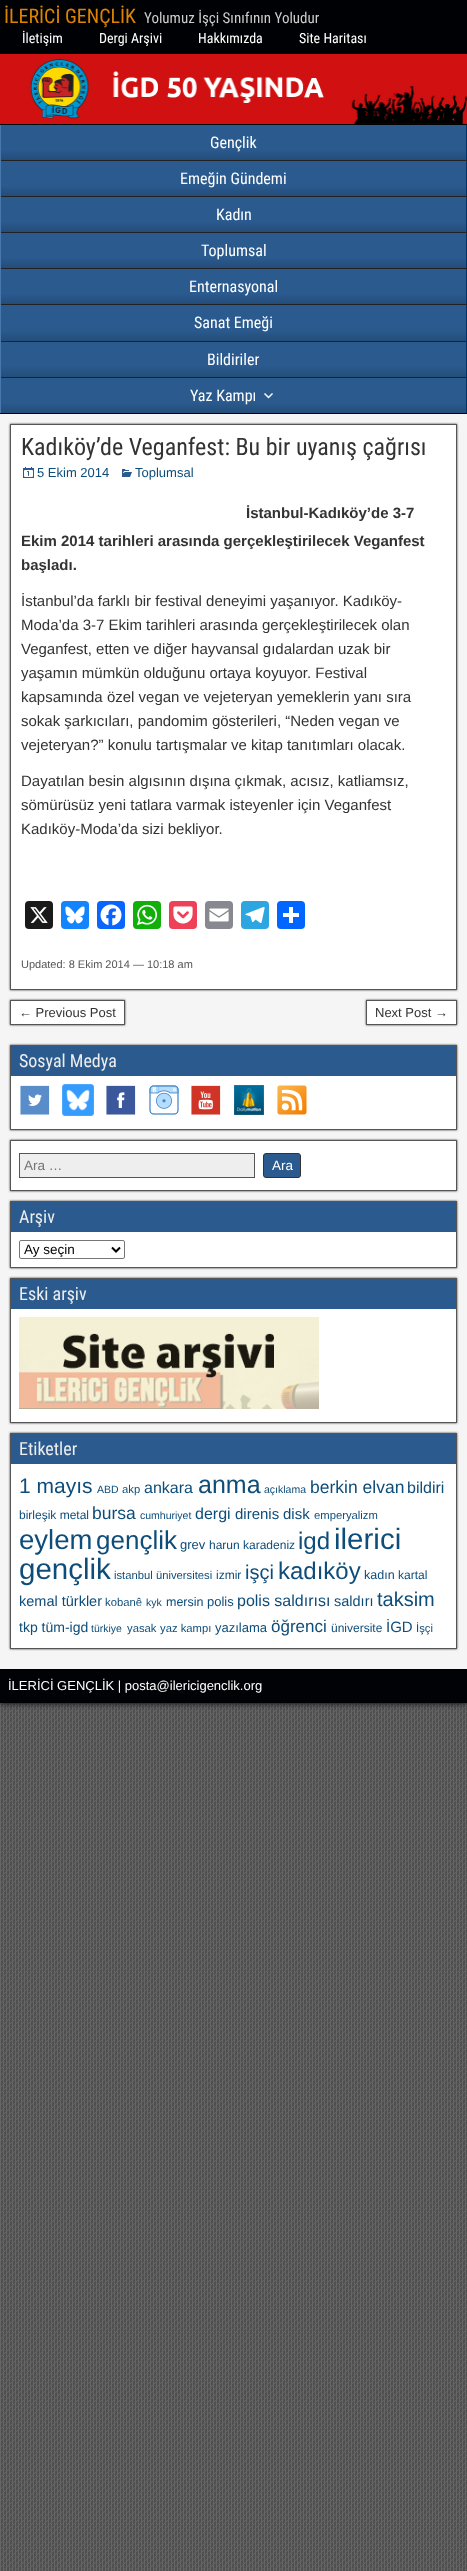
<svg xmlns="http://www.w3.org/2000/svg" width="467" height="2571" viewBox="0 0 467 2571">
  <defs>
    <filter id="blur1" x="-50%" y="-200%" width="200%" height="500%"><feGaussianBlur stdDeviation="3"/></filter>
    <linearGradient id="g1" gradientUnits="userSpaceOnUse" x1="234" y1="125" x2="234" y2="160"><stop offset="0.7" stop-color="#2a5a8e"/><stop offset="1" stop-color="#244d79"/></linearGradient>
    <linearGradient id="g2" gradientUnits="userSpaceOnUse" x1="234" y1="161" x2="234" y2="196"><stop offset="0.7" stop-color="#2a5a8e"/><stop offset="1" stop-color="#244d79"/></linearGradient>
    <linearGradient id="g3" gradientUnits="userSpaceOnUse" x1="234" y1="197" x2="234" y2="232"><stop offset="0.7" stop-color="#2a5a8e"/><stop offset="1" stop-color="#244d79"/></linearGradient>
    <linearGradient id="g4" gradientUnits="userSpaceOnUse" x1="234" y1="233" x2="234" y2="268"><stop offset="0.7" stop-color="#2a5a8e"/><stop offset="1" stop-color="#244d79"/></linearGradient>
    <linearGradient id="g5" gradientUnits="userSpaceOnUse" x1="234" y1="269" x2="234" y2="304"><stop offset="0.7" stop-color="#2a5a8e"/><stop offset="1" stop-color="#244d79"/></linearGradient>
    <linearGradient id="g6" gradientUnits="userSpaceOnUse" x1="234" y1="305" x2="234" y2="341"><stop offset="0.7" stop-color="#2a5a8e"/><stop offset="1" stop-color="#244d79"/></linearGradient>
    <linearGradient id="g7" gradientUnits="userSpaceOnUse" x1="234" y1="342" x2="234" y2="377"><stop offset="0.7" stop-color="#2a5a8e"/><stop offset="1" stop-color="#244d79"/></linearGradient>
    <linearGradient id="g8" gradientUnits="userSpaceOnUse" x1="234" y1="378" x2="234" y2="413"><stop offset="0.7" stop-color="#2a5a8e"/><stop offset="1" stop-color="#244d79"/></linearGradient>
    <filter id="blur2" x="-50%" y="-200%" width="200%" height="500%"><feGaussianBlur stdDeviation="1"/></filter>
  </defs>
  <rect width="100%" height="100%" fill="#505050"/>
  <image x="0" y="1703" width="467" height="868" href="img1.png"/>
  <rect x="0" y="0" width="467" height="1703" fill="#000000" filter="url(#blur1)"/>
  <rect x="0" y="0" width="467" height="53" fill="#000105"/>
  <rect x="0" y="53" width="467" height="1" fill="#000000"/>
  <text x="4" y="23" font-family="Roboto Condensed" font-size="20" fill="#dc8300">İLERİCİ GENÇLİK</text>
  <text x="144" y="23" font-family="Roboto Condensed" font-size="15" fill="#cccccc">Yolumuz İşçi Sınıfının Yoludur</text>
  <text x="22" y="43" font-family="Roboto Condensed" font-size="14" fill="#ffffff">İletişim</text>
  <text x="99" y="43" font-family="Roboto Condensed" font-size="14" fill="#ffffff">Dergi Arşivi</text>
  <text x="198" y="43" font-family="Roboto Condensed" font-size="14" fill="#ffffff">Hakkımızda</text>
  <text x="299" y="43" font-family="Roboto Condensed" font-size="14" fill="#ffffff">Site Haritası</text>
  <rect x="0" y="124" width="467" height="1" fill="#000000"/>
  <image x="0" y="54" width="467" height="70" href="img2.png"/>
  <rect x="0" y="413" width="467" height="1" fill="#000000"/>
  <rect x="1" y="125" width="465" height="35" fill="url(#g1)"/>
  <rect x="466" y="125" width="1" height="288" fill="#023266"/>
  <rect x="0" y="160" width="467" height="1" fill="#222222"/>
  <rect x="0" y="125" width="1" height="36" fill="#4878ac"/>
  <text x="210" y="148" font-family="Roboto Condensed" font-size="16" fill="#ffffff">Gençlik</text>
  <rect x="1" y="161" width="465" height="35" fill="url(#g2)"/>
  <rect x="0" y="196" width="467" height="1" fill="#222222"/>
  <rect x="0" y="161" width="1" height="36" fill="#4878ac"/>
  <text x="180" y="184" font-family="Roboto Condensed" font-size="16" fill="#ffffff">Emeğin Gündemi</text>
  <rect x="1" y="197" width="465" height="35" fill="url(#g3)"/>
  <rect x="0" y="232" width="467" height="1" fill="#222222"/>
  <rect x="0" y="197" width="1" height="36" fill="#4878ac"/>
  <text x="216" y="220" font-family="Roboto Condensed" font-size="16" fill="#ffffff">Kadın</text>
  <rect x="1" y="233" width="465" height="35" fill="url(#g4)"/>
  <rect x="0" y="268" width="467" height="1" fill="#222222"/>
  <rect x="0" y="233" width="1" height="36" fill="#4878ac"/>
  <text x="201" y="256" font-family="Roboto Condensed" font-size="16" fill="#ffffff">Toplumsal</text>
  <rect x="1" y="269" width="465" height="35" fill="url(#g5)"/>
  <rect x="0" y="304" width="467" height="1" fill="#222222"/>
  <rect x="0" y="269" width="1" height="36" fill="#4878ac"/>
  <text x="189" y="292" font-family="Roboto Condensed" font-size="16" fill="#ffffff">Enternasyonal</text>
  <rect x="1" y="305" width="465" height="36" fill="url(#g6)"/>
  <rect x="0" y="341" width="467" height="1" fill="#222222"/>
  <rect x="0" y="305" width="1" height="37" fill="#4878ac"/>
  <text x="194" y="328" font-family="Roboto Condensed" font-size="16" fill="#ffffff">Sanat Emeği</text>
  <rect x="1" y="342" width="465" height="35" fill="url(#g7)"/>
  <rect x="0" y="377" width="467" height="1" fill="#222222"/>
  <rect x="0" y="342" width="1" height="71" fill="#4878ac"/>
  <text x="207" y="365" font-family="Roboto Condensed" font-size="16" fill="#ffffff">Bildiriler</text>
  <rect x="1" y="378" width="465" height="35" fill="url(#g8)"/>
  <text x="190" y="401" font-family="Roboto Condensed" font-size="16" fill="#ffffff">Yaz Kampı</text>
  <image x="264" y="393" width="9" height="6" href="img3.png"/>
  <rect x="0" y="414" width="467" height="1255" fill="#f5f5f5"/>
  <rect x="10" y="424" width="447" height="566" fill="#333333" filter="url(#blur2)"/>
  <rect x="10.5" y="424.5" width="446" height="565" fill="#ffffff" stroke="#555555"/>
  <text x="21" y="455" font-family="Roboto Condensed" font-size="24" fill="#333333">Kadıköy’de Veganfest: Bu bir uyanış çağrısı</text>
  <image x="23" y="467" width="11" height="11" href="img4.png"/>
  <text x="37" y="477" font-family="Liberation Sans" font-size="13" fill="#0e4d7a">5 Ekim 2014</text>
  <image x="122" y="469" width="10" height="8" href="img5.png"/>
  <text x="135" y="477" font-family="Liberation Sans" font-size="13" fill="#0e4d7a">Toplumsal</text>
  <text x="246" y="518" font-family="Arimo" font-size="15" font-weight="bold" fill="#333333">İstanbul-Kadıköy’de 3-7</text>
  <text x="21" y="546" font-family="Arimo" font-size="15" font-weight="bold" fill="#333333">Ekim 2014 tarihleri arasında gerçekleştirilecek Veganfest</text>
  <text x="21" y="570" font-family="Arimo" font-size="15" font-weight="bold" fill="#333333">başladı.</text>
  <text x="21" y="606" font-family="Arimo" font-size="15" fill="#333333">İstanbul’da farklı bir festival deneyimi yaşanıyor. Kadıköy-</text>
  <text x="21" y="630" font-family="Arimo" font-size="15" fill="#333333">Moda’da 3-7 Ekim tarihleri arasında gerçekleştirilecek olan</text>
  <text x="21" y="654" font-family="Arimo" font-size="15" fill="#333333">Veganfest, etten ve diğer hayvansal gıdalardan uzak bir</text>
  <text x="21" y="678" font-family="Arimo" font-size="15" fill="#333333">yaşamın mümkün olduğunu ortaya koyuyor. Festival</text>
  <text x="21" y="702" font-family="Arimo" font-size="15" fill="#333333">kapsamında özel vegan ve vejeteryan yemeklerin yanı sıra</text>
  <text x="21" y="726" font-family="Arimo" font-size="15" fill="#333333">sokak şarkıcıları, pandomim gösterileri, “Neden vegan ve</text>
  <text x="21" y="750" font-family="Arimo" font-size="15" fill="#333333">vejeteryan?” konulu tartışmalar ve kitap tanıtımları olacak.</text>
  <text x="21" y="786" font-family="Arimo" font-size="15" fill="#333333">Dayatılan besin algısının dışına çıkmak, acısız, katliamsız,</text>
  <text x="21" y="810" font-family="Arimo" font-size="15" fill="#333333">sömürüsüz yeni tatlara varmak isteyenler için Veganfest</text>
  <text x="21" y="834" font-family="Arimo" font-size="15" fill="#333333">Kadıköy-Moda’da sizi bekliyor.</text>
  <rect x="25" y="901" width="28" height="28" rx="4" fill="#1a1a1a"/>
  <image x="30" y="907" width="18" height="16" href="img6.png"/>
  <rect x="61" y="901" width="28" height="28" rx="4" fill="#1285fe"/>
  <image x="65" y="906" width="20" height="18" href="img7.png"/>
  <rect x="97" y="901" width="28" height="28" rx="4" fill="#0866ff"/>
  <image x="100" y="904" width="22" height="22" href="img8.png"/>
  <rect x="133" y="901" width="28" height="28" rx="4" fill="#12af0a"/>
  <image x="137" y="904" width="21" height="22" href="img9.png"/>
  <rect x="169" y="901" width="28" height="28" rx="4" fill="#ee4056"/>
  <image x="173" y="906" width="20" height="18" href="img10.png"/>
  <rect x="205" y="901" width="28" height="28" rx="4" fill="#888990"/>
  <image x="209" y="908" width="20" height="14" href="img11.png"/>
  <rect x="241" y="901" width="28" height="28" rx="4" fill="#2ca5e0"/>
  <image x="245" y="907" width="20" height="16" href="img12.png"/>
  <rect x="277" y="901" width="28" height="28" rx="4" fill="#0166ff"/>
  <rect x="289" y="907" width="4" height="16" fill="#ffffff"/>
  <rect x="283" y="913" width="16" height="4" fill="#ffffff"/>
  <text x="21" y="968" font-family="Liberation Sans" font-size="11" fill="#555555">Updated: 8 Ekim 2014 — 10:18 am</text>
  <rect x="10" y="1000" width="115" height="25" fill="#333333" filter="url(#blur2)"/>
  <rect x="10.5" y="1000.5" width="114" height="24" fill="#ffffff" stroke="#555555"/>
  <text x="19" y="1017" font-family="Liberation Sans" font-size="13" fill="#333333">← Previous Post</text>
  <rect x="366" y="1000" width="91" height="25" fill="#333333" filter="url(#blur2)"/>
  <rect x="366.5" y="1000.5" width="90" height="24" fill="#ffffff" stroke="#555555"/>
  <text x="375" y="1017" font-family="Liberation Sans" font-size="13" fill="#333333">Next Post →</text>
  <rect x="10" y="1045" width="447" height="85" fill="#333333" filter="url(#blur2)"/>
  <rect x="11" y="1076" width="445" height="53" fill="#ffffff"/>
  <rect x="10.5" y="1045.5" width="446" height="84" fill="none" stroke="#555555"/>
  <rect x="11" y="1046" width="445" height="30" fill="#2a5a8e"/>
  <text x="19" y="1067" font-family="Roboto Condensed" font-size="18" fill="#eeeeee">Sosyal Medya</text>
  <image x="20" y="1085" width="30" height="30" href="img13.png"/>
  <image x="62" y="1084" width="32" height="32" href="img14.png"/>
  <image x="106" y="1085" width="30" height="30" href="img15.png"/>
  <image x="149" y="1085" width="30" height="30" href="img16.png"/>
  <image x="191" y="1085" width="30" height="30" href="img17.png"/>
  <image x="234" y="1085" width="30" height="30" href="img18.png"/>
  <image x="277" y="1085" width="30" height="30" href="img19.png"/>
  <rect x="10" y="1140" width="447" height="51" fill="#333333" filter="url(#blur2)"/>
  <rect x="10.5" y="1140.5" width="446" height="50" fill="#ffffff" stroke="#555555"/>
  <rect x="19.5" y="1153.5" width="235" height="24" fill="#eeeeee" stroke="#555555"/>
  <text x="24" y="1170" font-family="Liberation Sans" font-size="13.5" fill="#757575">Ara …</text>
  <rect x="263.5" y="1153.5" width="37" height="24" rx="2.5" fill="#2a5a8e" stroke="#333333"/>
  <text x="272" y="1170" font-family="Liberation Sans" font-size="13.5" fill="#ffffff">Ara</text>
  <rect x="10" y="1201" width="447" height="67" fill="#333333" filter="url(#blur2)"/>
  <rect x="11" y="1232" width="445" height="35" fill="#ffffff"/>
  <rect x="10.5" y="1201.5" width="446" height="66" fill="none" stroke="#555555"/>
  <rect x="11" y="1202" width="445" height="30" fill="#2a5a8e"/>
  <text x="19" y="1223" font-family="Roboto Condensed" font-size="18" fill="#eeeeee">Arşiv</text>
  <rect x="19.5" y="1240.5" width="105" height="18" rx="1.5" fill="none" stroke="#767676"/>
  <path d="M112 1247.5L116 1251.5L120 1247.5" fill="none" stroke="#000000" stroke-width="2"/>
  <text x="24" y="1254" font-family="Liberation Sans" font-size="13.5" fill="#000000">Ay seçin</text>
  <rect x="10" y="1278" width="447" height="145" fill="#333333" filter="url(#blur2)"/>
  <rect x="11" y="1309" width="445" height="113" fill="#ffffff"/>
  <rect x="10.5" y="1278.5" width="446" height="144" fill="none" stroke="#555555"/>
  <rect x="11" y="1279" width="445" height="30" fill="#2a5a8e"/>
  <text x="19" y="1300" font-family="Roboto Condensed" font-size="18" fill="#eeeeee">Eski arşiv</text>
  <image x="19" y="1317" width="300" height="92" href="img20.png"/>
  <rect x="10" y="1433" width="447" height="216" fill="#333333" filter="url(#blur2)"/>
  <rect x="11" y="1464" width="445" height="184" fill="#ffffff"/>
  <rect x="10.5" y="1433.5" width="446" height="215" fill="none" stroke="#555555"/>
  <rect x="11" y="1434" width="445" height="30" fill="#2a5a8e"/>
  <text x="19" y="1455" font-family="Roboto Condensed" font-size="18" fill="#eeeeee">Etiketler</text>
  <text x="19" y="1493" font-family="Liberation Sans" font-size="21" fill="#0e4d7a">1 mayıs</text>
  <text x="97" y="1493" font-family="Liberation Sans" font-size="10.5" fill="#0e4d7a">ABD</text>
  <text x="122" y="1493" font-family="Liberation Sans" font-size="11.25" fill="#0e4d7a">akp</text>
  <text x="144" y="1493" font-family="Liberation Sans" font-size="16" fill="#0e4d7a">ankara</text>
  <text x="198" y="1493" font-family="Liberation Sans" font-size="25" fill="#0e4d7a">anma</text>
  <text x="264" y="1493" font-family="Liberation Sans" font-size="10.5" fill="#0e4d7a">açıklama</text>
  <text x="310" y="1493" font-family="Liberation Sans" font-size="17.5" fill="#0e4d7a">berkin elvan</text>
  <text x="407" y="1493" font-family="Liberation Sans" font-size="16" fill="#0e4d7a">bildiri</text>
  <text x="19" y="1519" font-family="Liberation Sans" font-size="12" fill="#0e4d7a">birleşik metal</text>
  <text x="92" y="1519" font-family="Liberation Sans" font-size="17.5" fill="#0e4d7a">bursa</text>
  <text x="140" y="1519" font-family="Liberation Sans" font-size="10.5" fill="#0e4d7a">cumhuriyet</text>
  <text x="195" y="1519" font-family="Liberation Sans" font-size="16" fill="#0e4d7a">dergi</text>
  <text x="235" y="1519" font-family="Liberation Sans" font-size="15" fill="#0e4d7a">direnis</text>
  <text x="283" y="1519" font-family="Liberation Sans" font-size="15" fill="#0e4d7a">disk</text>
  <text x="314" y="1519" font-family="Liberation Sans" font-size="11.25" fill="#0e4d7a">emperyalizm</text>
  <text x="19" y="1549" font-family="Liberation Sans" font-size="27.5" fill="#0e4d7a">eylem</text>
  <text x="96" y="1549" font-family="Liberation Sans" font-size="26" fill="#0e4d7a">gençlik</text>
  <text x="180" y="1549" font-family="Liberation Sans" font-size="13" fill="#0e4d7a">grev</text>
  <text x="209" y="1549" font-family="Liberation Sans" font-size="12" fill="#0e4d7a">harun karadeniz</text>
  <text x="298" y="1549" font-family="Liberation Sans" font-size="24" fill="#0e4d7a">igd</text>
  <text x="334" y="1549" font-family="Liberation Sans" font-size="29.5" fill="#0e4d7a">ilerici</text>
  <text x="19" y="1579" font-family="Liberation Sans" font-size="29.5" fill="#0e4d7a">gençlik</text>
  <text x="114" y="1579" font-family="Liberation Sans" font-size="11.25" fill="#0e4d7a">istanbul üniversitesi</text>
  <text x="216" y="1579" font-family="Liberation Sans" font-size="12" fill="#0e4d7a">izmir</text>
  <text x="245" y="1579" font-family="Liberation Sans" font-size="20" fill="#0e4d7a">işçi</text>
  <text x="278" y="1579" font-family="Liberation Sans" font-size="24" fill="#0e4d7a">kadıköy</text>
  <text x="364" y="1579" font-family="Liberation Sans" font-size="12.5" fill="#0e4d7a">kadın</text>
  <text x="398" y="1579" font-family="Liberation Sans" font-size="12" fill="#0e4d7a">kartal</text>
  <text x="19" y="1606" font-family="Liberation Sans" font-size="14.5" fill="#0e4d7a">kemal türkler</text>
  <text x="105" y="1606" font-family="Liberation Sans" font-size="11.25" fill="#0e4d7a">kobanê</text>
  <text x="146" y="1606" font-family="Liberation Sans" font-size="10.5" fill="#0e4d7a">kyk</text>
  <text x="166" y="1606" font-family="Liberation Sans" font-size="12.5" fill="#0e4d7a">mersin</text>
  <text x="207" y="1606" font-family="Liberation Sans" font-size="13" fill="#0e4d7a">polis</text>
  <text x="237" y="1606" font-family="Liberation Sans" font-size="16" fill="#0e4d7a">polis saldırısı</text>
  <text x="334" y="1606" font-family="Liberation Sans" font-size="14.5" fill="#0e4d7a">saldırı</text>
  <text x="377" y="1606" font-family="Liberation Sans" font-size="20" fill="#0e4d7a">taksim</text>
  <text x="19" y="1632" font-family="Liberation Sans" font-size="14" fill="#0e4d7a">tkp tüm-igd</text>
  <text x="91" y="1632" font-family="Liberation Sans" font-size="10.5" fill="#0e4d7a">türkiye</text>
  <text x="127" y="1632" font-family="Liberation Sans" font-size="11.25" fill="#0e4d7a">yasak</text>
  <text x="160" y="1632" font-family="Liberation Sans" font-size="11.25" fill="#0e4d7a">yaz kampı</text>
  <text x="215" y="1632" font-family="Liberation Sans" font-size="13" fill="#0e4d7a">yazılama</text>
  <text x="271" y="1632" font-family="Liberation Sans" font-size="17" fill="#0e4d7a">öğrenci</text>
  <text x="331" y="1632" font-family="Liberation Sans" font-size="12" fill="#0e4d7a">üniversite</text>
  <text x="386" y="1632" font-family="Liberation Sans" font-size="15" fill="#0e4d7a">İGD</text>
  <text x="416" y="1632" font-family="Liberation Sans" font-size="11.25" fill="#0e4d7a">İşçi</text>
  <rect x="0" y="1670" width="467" height="33" fill="#000205"/>
  <rect x="0" y="1669" width="467" height="1" fill="#000000"/>
  <text x="8" y="1690" font-family="Liberation Sans" font-size="13" fill="#ffffff">İLERİCİ GENÇLİK | posta@ilericigenclik.org</text>
</svg>
